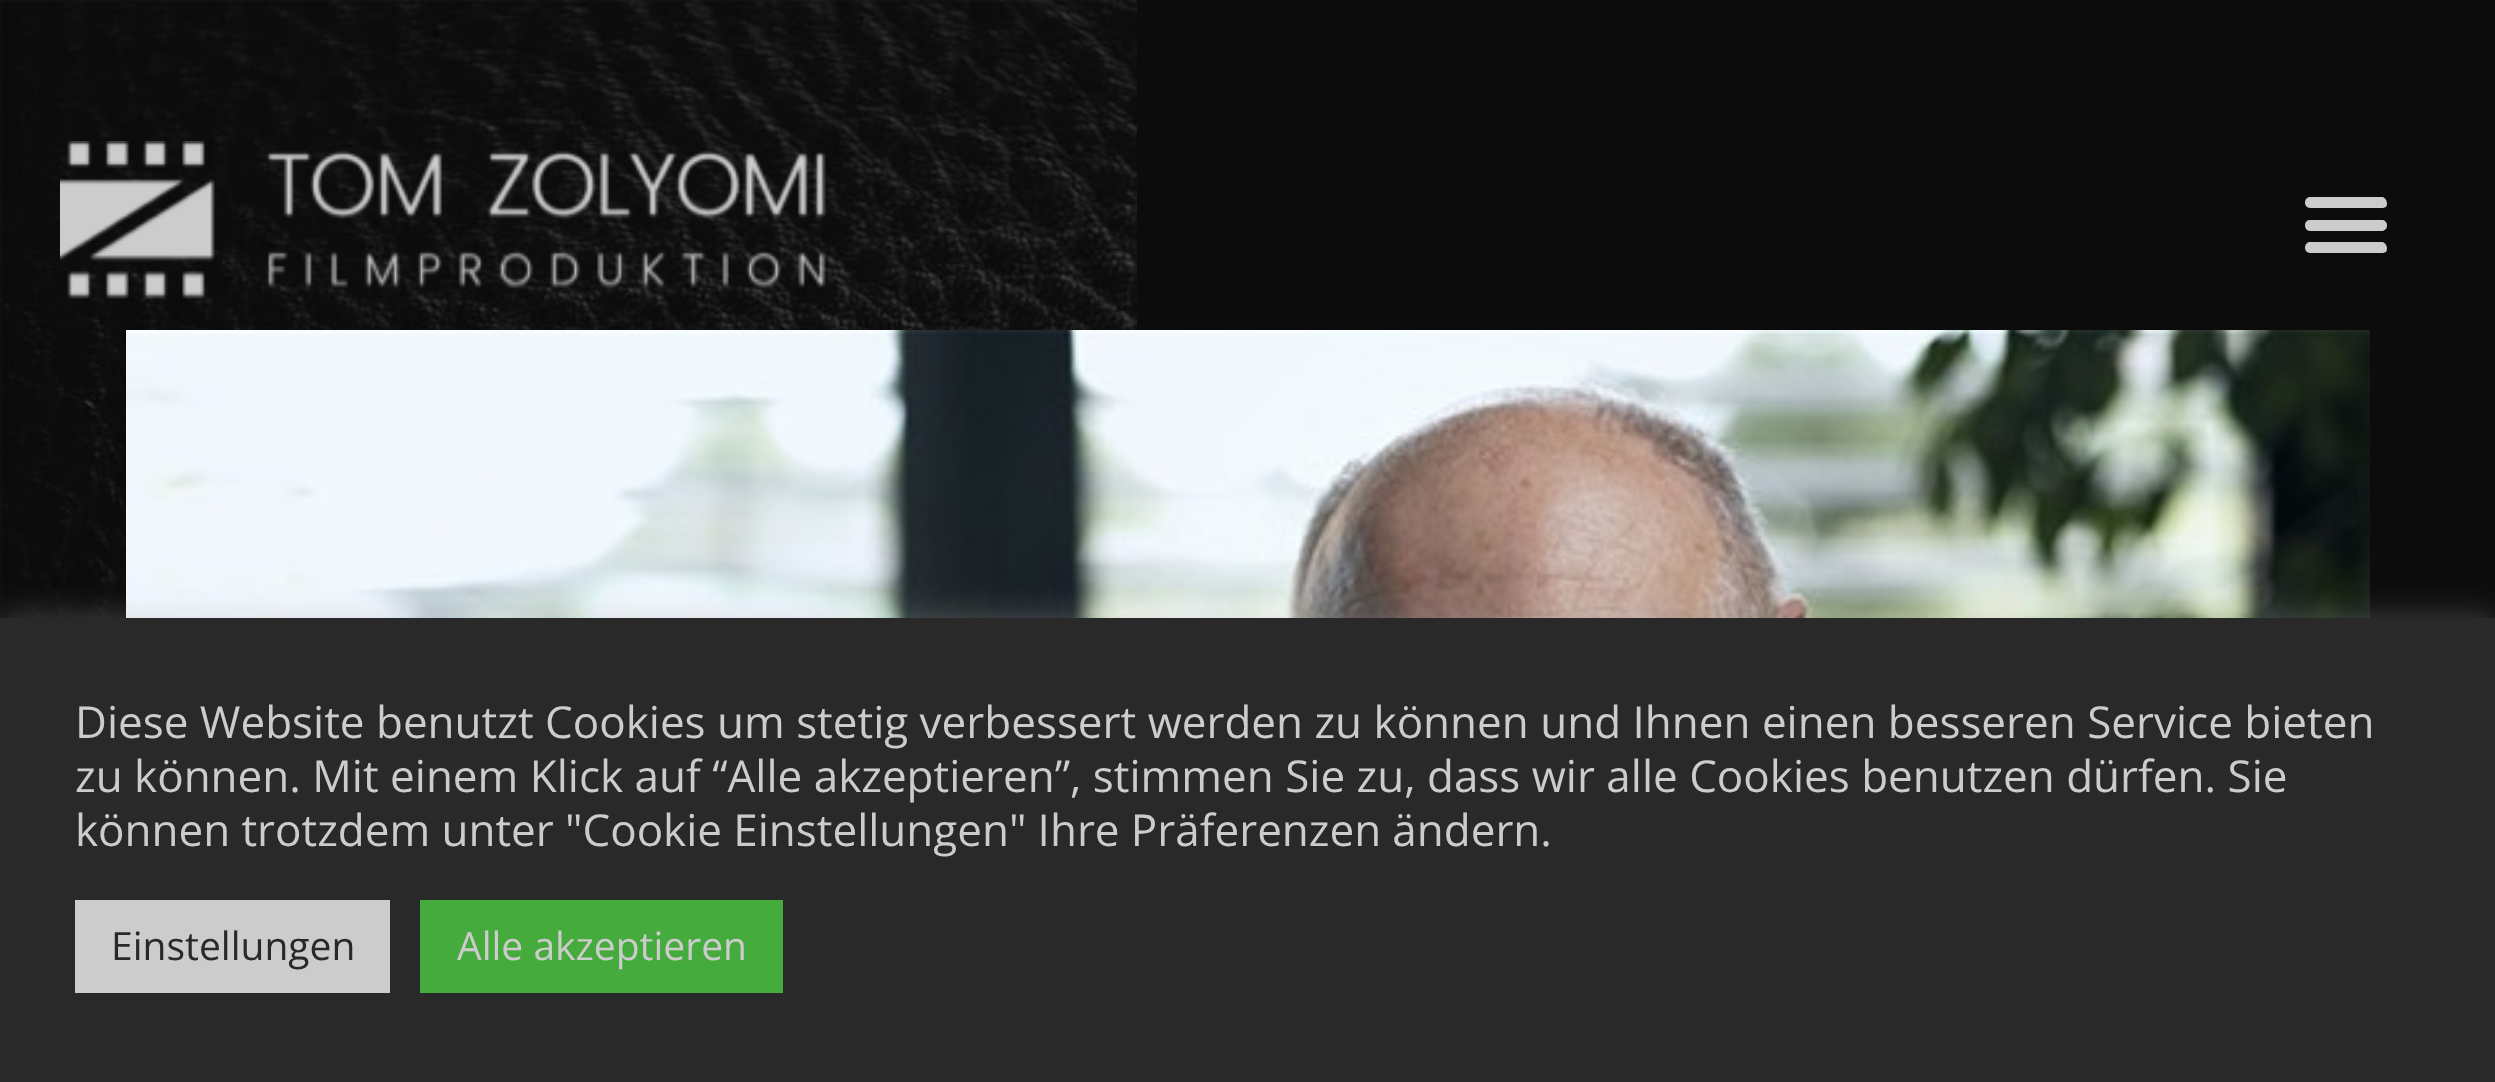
<svg xmlns="http://www.w3.org/2000/svg" width="2495" height="1082" viewBox="0 0 2495 1082">
  <defs>
    <filter id="blur1" x="-50%" y="-200%" width="200%" height="500%"><feGaussianBlur stdDeviation="15"/></filter>
  </defs>
  <rect width="100%" height="100%" fill="#0c0c0c"/>
  <image x="0" y="0" width="1137" height="618" href="img1.png"/>
  <image x="60" y="141" width="766" height="158" href="img2.png"/>
  <path d="M2310 208H2383L2386 207C2388 204 2387 199 2383 197H2309C2303 199 2304 208 2310 208ZM2310 231H2383L2386 229C2388 226 2387 221 2383 220H2309C2303 221 2304 231 2310 231ZM2310 253H2383L2386 252C2388 249 2387 244 2383 242H2309C2303 244 2304 253 2310 253Z" fill="#cccccc"/>
  <image x="126" y="330" width="2244" height="288" href="img3.png"/>
  <rect x="0" y="615" width="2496" height="465" fill="#acabab" fill-opacity="0.3" filter="url(#blur1)"/>
  <rect x="0" y="618" width="2495" height="464" fill="#292929"/>
  <text x="75" y="738" font-family="Open Sans" font-size="44" fill="#cccccc">Diese Website benutzt Cookies um stetig verbessert werden zu können und Ihnen einen besseren Service bieten</text>
  <text x="75" y="792" font-family="Open Sans" font-size="44" fill="#cccccc">zu können. Mit einem Klick auf “Alle akzeptieren”, stimmen Sie zu, dass wir alle Cookies benutzen dürfen. Sie</text>
  <text x="75" y="846" word-spacing="-0.25" font-family="Open Sans" font-size="44" fill="#cccccc">können trotzdem unter "Cookie Einstellungen" Ihre Präferenzen ändern.</text>
  <rect x="75" y="900" width="315" height="93" fill="#cccccc"/>
  <text x="111" y="960" font-family="Open Sans" font-size="39" fill="#292929">Einstellungen</text>
  <rect x="420" y="900" width="363" height="93" fill="#45ab3c"/>
  <text x="457" y="960" font-family="Open Sans" font-size="39" fill="#cccccc">Alle akzeptieren</text>
</svg>
